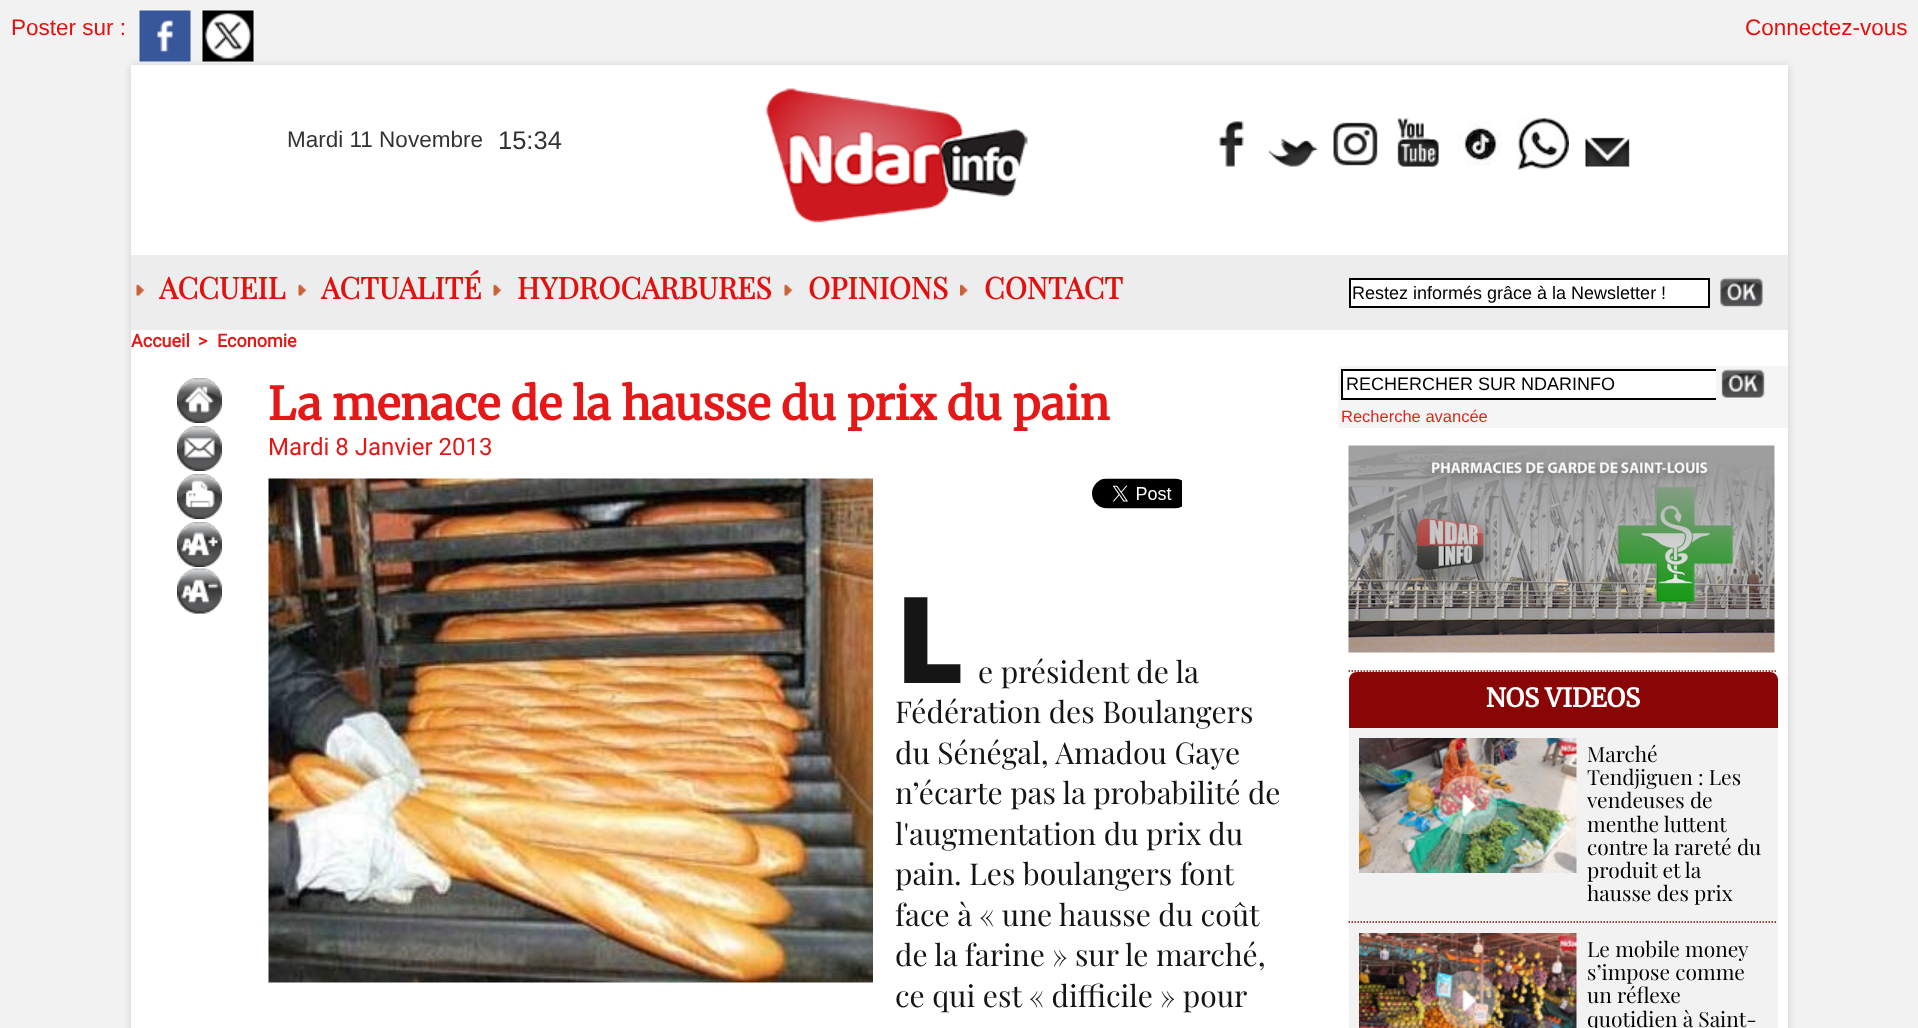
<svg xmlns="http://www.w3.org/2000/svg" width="1918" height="1028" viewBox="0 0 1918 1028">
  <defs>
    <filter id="blur1" x="-50%" y="-200%" width="200%" height="500%"><feGaussianBlur stdDeviation="4.5"/></filter>
  </defs>
  <rect width="100%" height="100%" fill="#f2f2f2"/>
  <text x="11" y="35" font-family="Liberation Sans" font-size="22.5" fill="#e31010">Poster sur :</text>
  <rect x="131" y="66" width="1657" height="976" fill="#cccccc" filter="url(#blur1)"/>
  <image x="139" y="10" width="52" height="52" href="img1.png"/>
  <image x="202" y="10" width="52" height="52" href="img2.png"/>
  <text x="1745" y="35" font-family="Liberation Sans" font-size="22.5" fill="#e31010">Connectez-vous</text>
  <rect x="131" y="65" width="1657" height="963" fill="#ffffff"/>
  <text x="287" y="147" font-family="Liberation Sans" font-size="22.5" fill="#333333">Mardi 11 Novembre</text>
  <text x="498" y="149" font-family="Liberation Sans" font-size="25.5" fill="#333333">15:34</text>
  <image x="766" y="88" width="262" height="135" href="img3.png"/>
  <image x="1219" y="121" width="25" height="46" href="img4.png"/>
  <image x="1268" y="138" width="50" height="29" href="img5.png"/>
  <image x="1333" y="122" width="45" height="44" href="img6.png"/>
  <image x="1397" y="118" width="42" height="49" href="img7.png"/>
  <image x="1457" y="122" width="46" height="44" href="img8.png"/>
  <image x="1518" y="118" width="51" height="52" href="img9.png"/>
  <image x="1585" y="137" width="45" height="30" href="img10.png"/>
  <rect x="131" y="255" width="1657" height="75" fill="#ededed"/>
  <image x="136" y="284" width="9" height="12" href="img11.png"/>
  <text x="159" y="299" font-family="Playfair Display" font-size="30" font-weight="bold" fill="#e31010">ACCUEIL</text>
  <image x="298" y="284" width="9" height="12" href="img12.png"/>
  <text x="321" y="299" font-family="Playfair Display" font-size="30" font-weight="bold" fill="#e31010">ACTUALITÉ</text>
  <image x="493" y="284" width="9" height="12" href="img11.png"/>
  <text x="517" y="299" font-family="Playfair Display" font-size="30" font-weight="bold" fill="#e31010">HYDROCARBURES</text>
  <image x="784" y="284" width="9" height="12" href="img11.png"/>
  <text x="808" y="299" font-family="Playfair Display" font-size="30" font-weight="bold" fill="#e31010">OPINIONS</text>
  <image x="960" y="284" width="8" height="12" href="img13.png"/>
  <text x="984" y="299" font-family="Playfair Display" font-size="30" font-weight="bold" fill="#e31010">CONTACT</text>
  <rect x="1350" y="279" width="359" height="28" fill="#ffffff" stroke="#000000" stroke-width="2"/>
  <text x="1352" y="299" font-family="Liberation Sans" font-size="18" fill="#000000">Restez informés grâce à la Newsletter !</text>
  <image x="1720" y="277" width="43" height="30" href="img14.png"/>
  <text x="131" y="347" font-family="Roboto" font-size="18" font-weight="bold" fill="#e61717">Accueil</text>
  <text x="198" y="347" font-family="Roboto" font-size="18" font-weight="bold" fill="#e61717">&gt;</text>
  <text x="217" y="347" font-family="Roboto" font-size="18" font-weight="bold" fill="#e61717">Economie</text>
  <image x="177" y="378" width="45" height="45" href="img15.png"/>
  <image x="177" y="426" width="45" height="45" href="img16.png"/>
  <image x="177" y="474" width="45" height="45" href="img17.png"/>
  <image x="177" y="522" width="45" height="45" href="img18.png"/>
  <image x="177" y="568" width="45" height="46" href="img19.png"/>
  <text x="268" y="420" font-family="Merriweather" font-size="45" font-weight="bold" fill="#e61717">La menace de la hausse du prix du pain</text>
  <text x="268" y="455" font-family="Roboto" font-size="24" fill="#e61717">Mardi 8 Janvier 2013</text>
  <image x="268" y="478" width="605" height="505" href="img20.png"/>
  <image x="1092" y="478" width="90" height="31" href="img21.png"/>
  <text x="895" y="683" font-family="Noto Sans" font-size="120" font-weight="900" fill="#151515">L</text>
  <text x="978" y="683" font-family="Playfair Display" font-size="30" fill="#151515">e président de la</text>
  <text x="895" y="723" font-family="Playfair Display" font-size="30" fill="#151515">Fédération des Boulangers</text>
  <text x="895" y="764" font-family="Playfair Display" font-size="30" fill="#151515">du Sénégal, Amadou Gaye</text>
  <text x="895" y="804" font-family="Playfair Display" font-size="30" fill="#151515">n’écarte pas la probabilité de</text>
  <text x="895" y="845" font-family="Playfair Display" font-size="30" fill="#151515">l'augmentation du prix du</text>
  <text x="895" y="885" font-family="Playfair Display" font-size="30" fill="#151515">pain. Les boulangers font</text>
  <text x="895" y="926" font-family="Playfair Display" font-size="30" fill="#151515">face à « une hausse du coût</text>
  <text x="895" y="966" font-family="Playfair Display" font-size="30" fill="#151515">de la farine » sur le marché,</text>
  <text x="895" y="1007" font-family="Playfair Display" font-size="30" fill="#151515">ce qui est « difficile » pour</text>
  <rect x="1338" y="366" width="450" height="62" fill="#f5f5f5"/>
  <rect x="1343" y="371" width="373" height="27" fill="#ffffff"/>
  <rect x="1341" y="369" width="375" height="2" fill="#000000"/>
  <rect x="1341" y="398" width="375" height="2" fill="#000000"/>
  <rect x="1341" y="369" width="2" height="30" fill="#000000"/>
  <text x="1346" y="390" font-family="Liberation Sans" font-size="18" fill="#000000">RECHERCHER SUR NDARINFO</text>
  <image x="1721" y="369" width="44" height="29" href="img22.png"/>
  <text x="1341" y="422" font-family="Liberation Sans" font-size="16.5" fill="#dc281e">Recherche avancée</text>
  <image x="1348" y="445" width="427" height="208" href="img23.png"/>
  <path d="M1348.5 671H1777.5" fill="none" stroke="#8a0505" stroke-width="1.5" stroke-dasharray="1.5 1.5"/>
  <path d="M1357 672H1770C1774.5 672 1778 675.5 1778 680V728H1349V680C1349 675.5 1352.5 672 1357 672Z" fill="#8a0505"/>
  <text x="1486" y="707" font-family="Merriweather" font-size="25.5" font-weight="bold" fill="#ffffff">NOS VIDEOS</text>
  <rect x="1349" y="728" width="429" height="300" fill="#f2f2f2"/>
  <path d="M1348.5 922H1777.5" fill="none" stroke="#8a0505" stroke-width="1.5" stroke-dasharray="1.5 1.5"/>
  <image x="1359" y="738" width="218" height="135" href="img24.png"/>
  <image x="1438" y="775" width="59" height="59" href="img25.png"/>
  <text x="1587" y="762" font-family="Playfair Display" font-size="21" fill="#000000">Marché</text>
  <text x="1587" y="785" font-family="Playfair Display" font-size="21" fill="#000000">Tendjiguen : Les</text>
  <text x="1587" y="808" font-family="Playfair Display" font-size="21" fill="#000000">vendeuses de</text>
  <text x="1587" y="832" font-family="Playfair Display" font-size="21" fill="#000000">menthe luttent</text>
  <text x="1587" y="855" font-family="Playfair Display" font-size="21" fill="#000000">contre la rareté du</text>
  <text x="1587" y="878" font-family="Playfair Display" font-size="21" fill="#000000">produit et la</text>
  <text x="1587" y="901" font-family="Playfair Display" font-size="21" fill="#000000">hausse des prix</text>
  <image x="1359" y="933" width="218" height="95" href="img26.png"/>
  <image x="1438" y="970" width="59" height="58" href="img27.png"/>
  <text x="1587" y="957" font-family="Playfair Display" font-size="21" fill="#000000">Le mobile money</text>
  <text x="1587" y="980" font-family="Playfair Display" font-size="21" fill="#000000">s’impose comme</text>
  <text x="1587" y="1003" font-family="Playfair Display" font-size="21" fill="#000000">un réflexe</text>
  <text x="1587" y="1027" font-family="Playfair Display" font-size="21" fill="#000000">quotidien à Saint-</text>
</svg>
